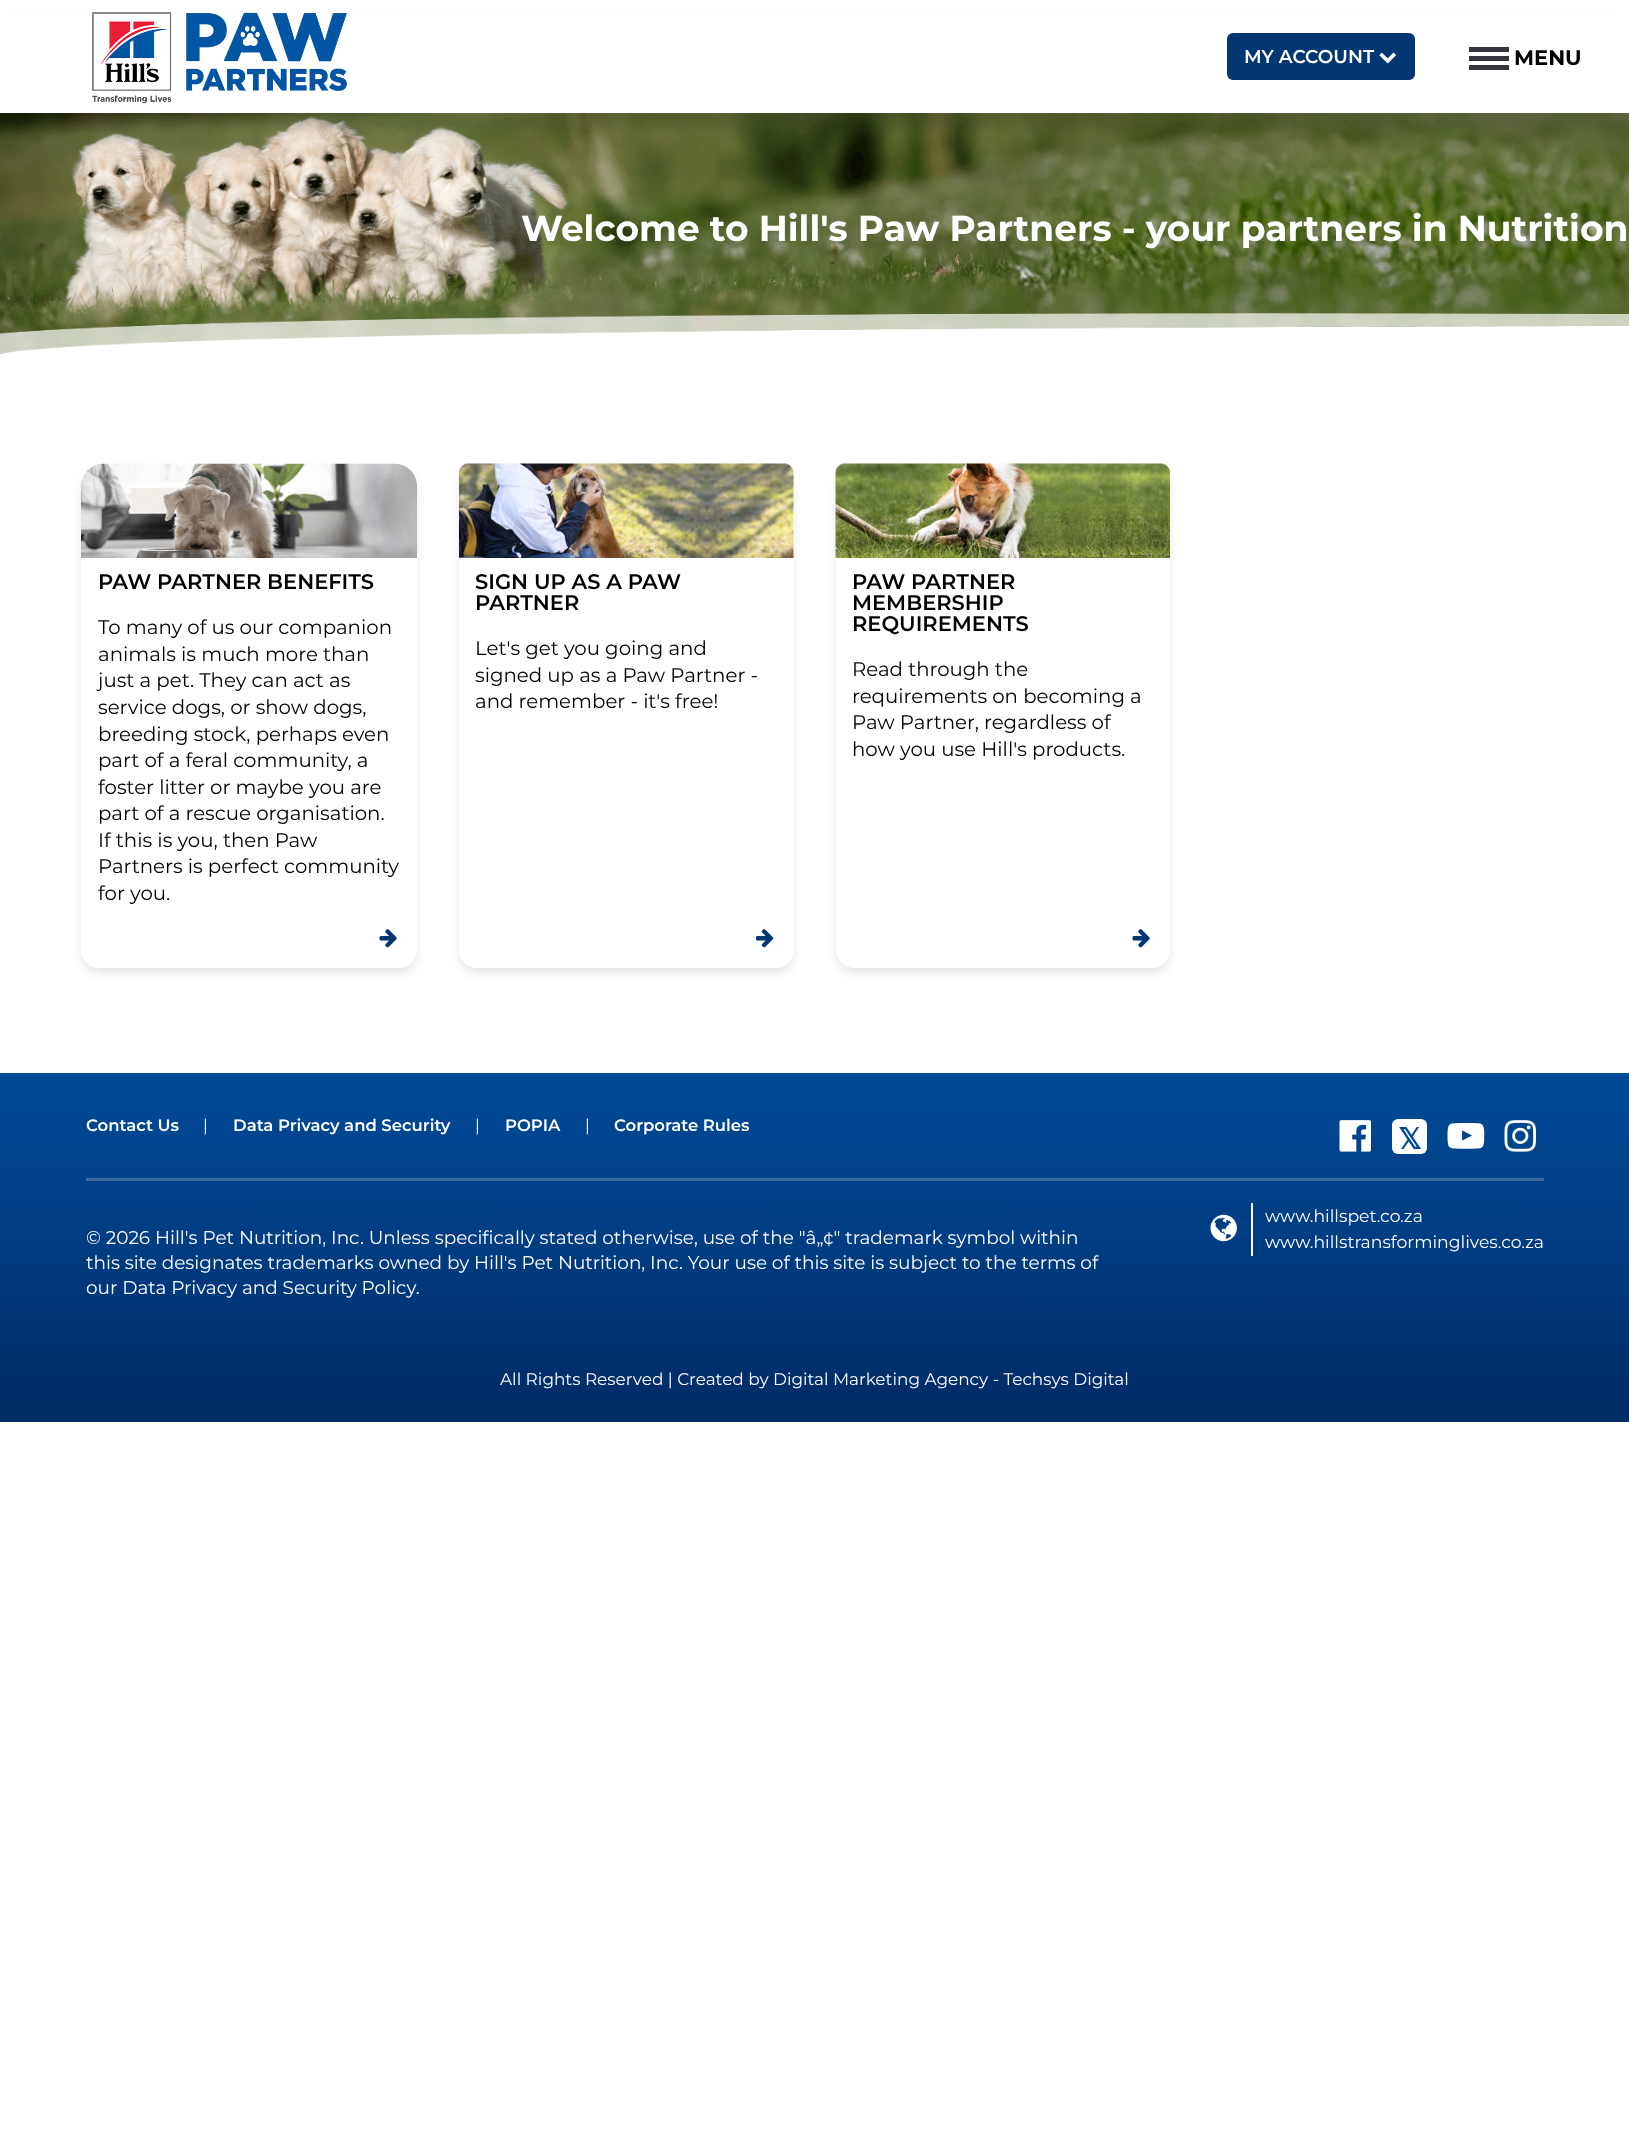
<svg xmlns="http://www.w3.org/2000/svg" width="1629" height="2147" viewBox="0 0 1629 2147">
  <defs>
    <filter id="blur1" x="-50%" y="-200%" width="200%" height="500%"><feGaussianBlur stdDeviation="4"/></filter>
    <clipPath id="clip1"><path d="M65 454H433V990H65ZM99 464H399C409 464 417 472 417 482V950C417 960 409 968 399 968H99C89 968 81 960 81 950V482C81 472 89 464 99 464Z" clip-rule="evenodd"/></clipPath>
    <filter id="blur2" x="-50%" y="-200%" width="200%" height="500%"><feGaussianBlur stdDeviation="6"/></filter>
    <clipPath id="clip2"><path d="M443 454H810V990H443ZM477 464H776C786 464 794 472 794 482V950C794 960 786 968 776 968H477C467 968 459 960 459 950V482C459 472 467 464 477 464Z" clip-rule="evenodd"/></clipPath>
    <clipPath id="clip3"><path d="M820 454H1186V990H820ZM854 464H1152C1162 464 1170 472 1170 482V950C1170 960 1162 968 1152 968H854C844 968 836 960 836 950V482C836 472 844 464 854 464Z" clip-rule="evenodd"/></clipPath>
    <linearGradient id="g1" gradientUnits="userSpaceOnUse" x1="815" y1="1072" x2="815" y2="1422"><stop offset="0" stop-color="#004a97"/><stop offset="0.5" stop-color="#003c81"/><stop offset="1" stop-color="#002a64"/></linearGradient>
  </defs>
  <rect width="100%" height="100%" fill="#ffffff"/>
  <image x="0" y="113" width="1629" height="242" href="img3.png"/>
  <rect x="0" y="15" width="1629" height="113" fill="#000000" fill-opacity="0.1" filter="url(#blur1)"/>
  <rect x="0" y="10" width="1629" height="103" fill="#ffffff"/>
  <image x="92" y="12" width="255" height="92" href="img1.png"/>
  <rect x="1227" y="33" width="188" height="47" rx="6" fill="#003672"/>
  <text x="1244" y="63" font-family="Montserrat" font-size="18.5" font-weight="600" fill="#ffffff">MY ACCOUNT</text>
  <image x="1379" y="52" width="17" height="12" href="img2.png"/>
  <rect x="1469" y="56" width="40" height="5" fill="#34363b"/>
  <rect x="1469" y="47" width="40" height="5" fill="#34363b"/>
  <rect x="1469" y="65" width="40" height="5" fill="#34363b"/>
  <text x="1514" y="65" font-family="Montserrat" font-size="21" font-weight="bold" fill="#000000">MENU</text>
  <text x="521" y="241" font-family="Montserrat" font-size="36" font-weight="bold" fill="#ffffff">Welcome to Hill's Paw Partners - your partners in Nutrition</text>
  <g clip-path="url(#clip1)">
    <rect x="84" y="473" width="330" height="498" rx="15" fill="#000000" fill-opacity="0.15" filter="url(#blur2)"/>
  </g>
  <image x="81" y="463" width="336" height="95" href="img4.png"/>
  <text x="98" y="589" font-family="Montserrat" font-size="21" font-weight="600" fill="#000000">PAW PARTNER BENEFITS</text>
  <text x="98" y="634" font-family="Montserrat" font-size="19.75" fill="#000000">To many of us our companion</text>
  <text x="98" y="661" font-family="Montserrat" font-size="19.75" fill="#000000">animals is much more than</text>
  <text x="98" y="687" font-family="Montserrat" font-size="19.75" fill="#000000">just a pet. They can act as</text>
  <text x="98" y="714" font-family="Montserrat" font-size="19.75" fill="#000000">service dogs, or show dogs,</text>
  <text x="98" y="741" font-family="Montserrat" font-size="19.75" fill="#000000">breeding stock, perhaps even</text>
  <text x="98" y="767" font-family="Montserrat" font-size="19.75" fill="#000000">part of a feral community, a</text>
  <text x="98" y="794" font-family="Montserrat" font-size="19.75" fill="#000000">foster litter or maybe you are</text>
  <text x="98" y="820" font-family="Montserrat" font-size="19.75" fill="#000000">part of a rescue organisation.</text>
  <text x="98" y="847" font-family="Montserrat" font-size="19.75" fill="#000000">If this is you, then Paw</text>
  <text x="98" y="873" font-family="Montserrat" font-size="19.75" fill="#000000">Partners is perfect community</text>
  <text x="98" y="900" font-family="Montserrat" font-size="19.75" fill="#000000">for you.</text>
  <image x="379" y="929" width="18" height="19" href="img5.png"/>
  <g clip-path="url(#clip2)">
    <rect x="462" y="473" width="329" height="498" rx="15" fill="#000000" fill-opacity="0.15" filter="url(#blur2)"/>
  </g>
  <image x="459" y="463" width="335" height="95" href="img6.png"/>
  <text x="475" y="589" font-family="Montserrat" font-size="21" font-weight="600" fill="#000000">SIGN UP AS A PAW</text>
  <text x="475" y="610" font-family="Montserrat" font-size="21" font-weight="600" fill="#000000">PARTNER</text>
  <text x="475" y="655" font-family="Montserrat" font-size="19.75" fill="#000000">Let's get you going and</text>
  <text x="475" y="682" font-family="Montserrat" font-size="19.75" fill="#000000">signed up as a Paw Partner -</text>
  <text x="475" y="708" font-family="Montserrat" font-size="19.75" fill="#000000">and remember - it's free!</text>
  <image x="756" y="929" width="18" height="19" href="img7.png"/>
  <g clip-path="url(#clip3)">
    <rect x="839" y="473" width="328" height="498" rx="15" fill="#000000" fill-opacity="0.15" filter="url(#blur2)"/>
  </g>
  <image x="835" y="463" width="335" height="95" href="img8.png"/>
  <text x="852" y="589" font-family="Montserrat" font-size="21" font-weight="600" fill="#000000">PAW PARTNER</text>
  <text x="852" y="610" font-family="Montserrat" font-size="21" font-weight="600" fill="#000000">MEMBERSHIP</text>
  <text x="852" y="631" font-family="Montserrat" font-size="21" font-weight="600" fill="#000000">REQUIREMENTS</text>
  <text x="852" y="676" font-family="Montserrat" font-size="19.75" fill="#000000">Read through the</text>
  <text x="852" y="703" font-family="Montserrat" font-size="19.75" fill="#000000">requirements on becoming a</text>
  <text x="852" y="729" font-family="Montserrat" font-size="19.75" fill="#000000">Paw Partner, regardless of</text>
  <text x="852" y="756" font-family="Montserrat" font-size="19.75" fill="#000000">how you use Hill's products.</text>
  <image x="1132" y="929" width="18" height="19" href="img5.png"/>
  <rect x="0" y="1073" width="1629" height="349" fill="url(#g1)"/>
  <rect x="86" y="1178" width="1458" height="3" fill="#3c699e"/>
  <text x="86" y="1131" font-family="Montserrat" font-size="16.5" font-weight="600" fill="#ffffff">Contact Us</text>
  <text x="203" y="1131" font-family="Montserrat" font-size="16.5" fill="#ffffff">|</text>
  <text x="233" y="1131" font-family="Montserrat" font-size="16.5" font-weight="600" fill="#ffffff">Data Privacy and Security</text>
  <text x="475" y="1131" font-family="Montserrat" font-size="16.5" fill="#ffffff">|</text>
  <text x="505" y="1131" font-family="Montserrat" font-size="16.5" font-weight="600" fill="#ffffff">POPIA</text>
  <text x="585" y="1131" font-family="Montserrat" font-size="16.5" fill="#ffffff">|</text>
  <text x="614" y="1131" font-family="Montserrat" font-size="16.5" font-weight="600" fill="#ffffff">Corporate Rules</text>
  <image x="1339" y="1120" width="32" height="32" href="img9.png"/>
  <rect x="1392" y="1119" width="35" height="35" rx="6" fill="#ffffff"/>
  <text x="1398" y="1149" font-family="DejaVu Sans" font-size="29" font-weight="bold" fill="#004793">𝕏</text>
  <image x="1447" y="1122" width="38" height="27" href="img10.png"/>
  <image x="1504" y="1120" width="32" height="32" href="img11.png"/>
  <text x="86" y="1244" font-family="Montserrat" font-size="18.47" fill="#ffffff">© 2026 Hill's Pet Nutrition, Inc. Unless specifically stated otherwise, use of the "â„¢" trademark symbol within</text>
  <text x="86" y="1269" font-family="Montserrat" font-size="18.47" fill="#ffffff">this site designates trademarks owned by Hill's Pet Nutrition, Inc. Your use of this site is subject to the terms of</text>
  <text x="86" y="1294" font-family="Montserrat" font-size="18.47" fill="#ffffff">our Data Privacy and Security Policy.</text>
  <image x="1210" y="1214" width="27" height="28" href="img12.png"/>
  <rect x="1251" y="1203" width="2" height="53" fill="#ffffff"/>
  <text x="1265" y="1222" font-family="Montserrat" font-size="17.25" fill="#ffffff">www.hillspet.co.za</text>
  <text x="1265" y="1248" font-family="Montserrat" font-size="17.25" fill="#ffffff">www.hillstransforminglives.co.za</text>
  <text x="500" y="1385" font-family="Montserrat" font-size="16.9" fill="#ffffff">All Rights Reserved | Created by Digital Marketing Agency - Techsys Digital</text>
</svg>
